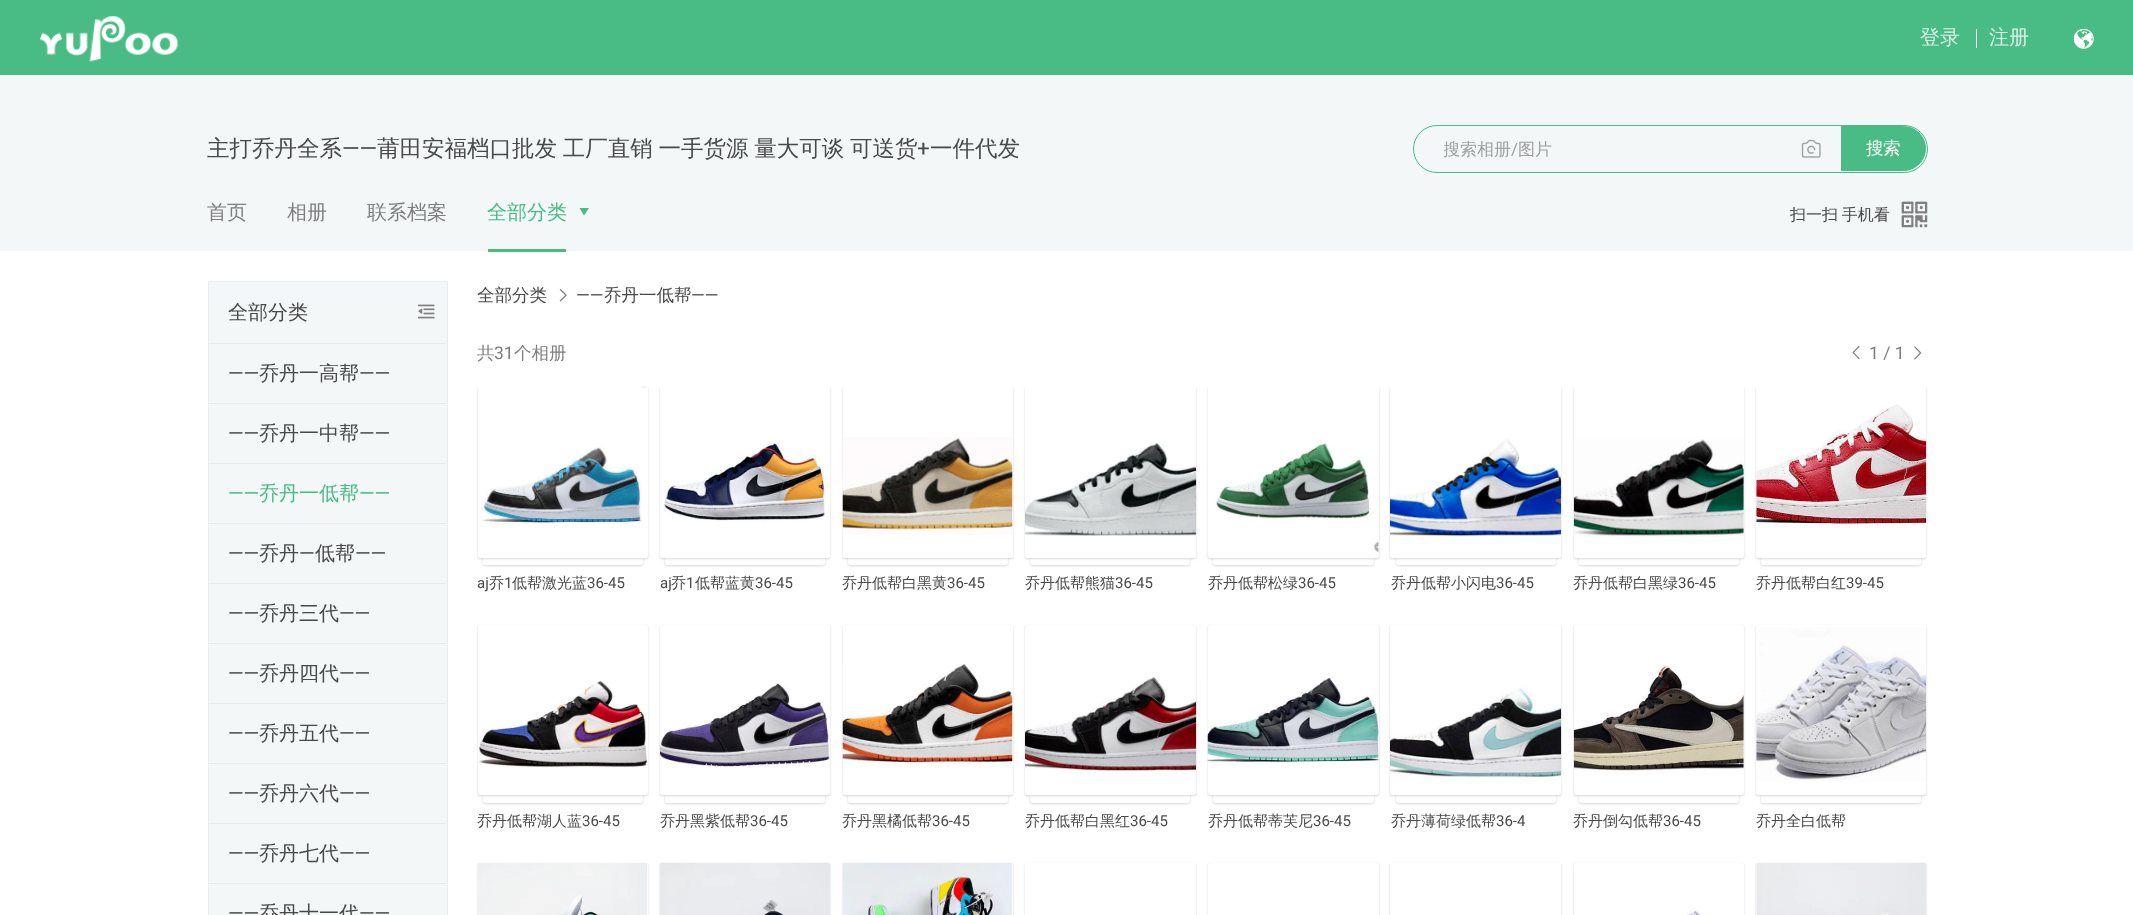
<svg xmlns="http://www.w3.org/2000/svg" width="2133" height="915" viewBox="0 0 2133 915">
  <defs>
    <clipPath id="clip1"><rect x="1444" y="139" width="322" height="22"/></clipPath>
    <filter id="blur1" x="-50%" y="-200%" width="200%" height="500%"><feGaussianBlur stdDeviation="1"/></filter>
    <clipPath id="clip2"><path d="M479 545H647V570H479ZM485.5 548H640.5C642 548 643 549 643 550.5V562.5C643 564 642 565 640.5 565H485.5C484 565 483 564 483 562.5V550.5C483 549 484 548 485.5 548Z" clip-rule="evenodd"/></clipPath>
    <clipPath id="clip3"><path d="M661 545H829V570H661ZM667.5 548H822.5C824 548 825 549 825 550.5V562.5C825 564 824 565 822.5 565H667.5C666 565 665 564 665 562.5V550.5C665 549 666 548 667.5 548Z" clip-rule="evenodd"/></clipPath>
    <clipPath id="clip4"><path d="M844 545H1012V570H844ZM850.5 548H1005.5C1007 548 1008 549 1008 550.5V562.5C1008 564 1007 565 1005.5 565H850.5C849 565 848 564 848 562.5V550.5C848 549 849 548 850.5 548Z" clip-rule="evenodd"/></clipPath>
    <clipPath id="clip5"><path d="M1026 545H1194V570H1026ZM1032.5 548H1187.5C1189 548 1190 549 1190 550.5V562.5C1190 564 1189 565 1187.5 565H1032.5C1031 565 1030 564 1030 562.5V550.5C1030 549 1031 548 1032.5 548Z" clip-rule="evenodd"/></clipPath>
    <clipPath id="clip6"><path d="M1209 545H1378V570H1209ZM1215.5 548H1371.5C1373 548 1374 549 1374 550.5V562.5C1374 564 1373 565 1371.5 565H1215.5C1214 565 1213 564 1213 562.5V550.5C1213 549 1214 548 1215.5 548Z" clip-rule="evenodd"/></clipPath>
    <clipPath id="clip7"><path d="M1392 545H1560V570H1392ZM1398.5 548H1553.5C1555 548 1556 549 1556 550.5V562.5C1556 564 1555 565 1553.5 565H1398.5C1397 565 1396 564 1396 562.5V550.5C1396 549 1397 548 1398.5 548Z" clip-rule="evenodd"/></clipPath>
    <clipPath id="clip8"><path d="M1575 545H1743V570H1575ZM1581.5 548H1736.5C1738 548 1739 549 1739 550.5V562.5C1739 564 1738 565 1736.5 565H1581.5C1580 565 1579 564 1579 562.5V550.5C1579 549 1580 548 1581.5 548Z" clip-rule="evenodd"/></clipPath>
    <clipPath id="clip9"><path d="M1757 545H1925V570H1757ZM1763.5 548H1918.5C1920 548 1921 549 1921 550.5V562.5C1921 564 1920 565 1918.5 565H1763.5C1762 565 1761 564 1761 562.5V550.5C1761 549 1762 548 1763.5 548Z" clip-rule="evenodd"/></clipPath>
    <clipPath id="clip10"><path d="M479 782H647V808H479ZM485.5 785H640.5C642 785 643 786 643 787.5V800.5C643 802 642 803 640.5 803H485.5C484 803 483 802 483 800.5V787.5C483 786 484 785 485.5 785Z" clip-rule="evenodd"/></clipPath>
    <clipPath id="clip11"><path d="M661 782H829V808H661ZM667.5 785H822.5C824 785 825 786 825 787.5V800.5C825 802 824 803 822.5 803H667.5C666 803 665 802 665 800.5V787.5C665 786 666 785 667.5 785Z" clip-rule="evenodd"/></clipPath>
    <clipPath id="clip12"><path d="M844 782H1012V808H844ZM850.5 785H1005.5C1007 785 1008 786 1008 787.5V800.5C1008 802 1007 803 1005.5 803H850.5C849 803 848 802 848 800.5V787.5C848 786 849 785 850.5 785Z" clip-rule="evenodd"/></clipPath>
    <clipPath id="clip13"><path d="M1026 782H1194V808H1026ZM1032.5 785H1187.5C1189 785 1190 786 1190 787.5V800.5C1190 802 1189 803 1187.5 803H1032.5C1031 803 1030 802 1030 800.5V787.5C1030 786 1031 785 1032.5 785Z" clip-rule="evenodd"/></clipPath>
    <clipPath id="clip14"><path d="M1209 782H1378V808H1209ZM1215.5 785H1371.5C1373 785 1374 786 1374 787.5V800.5C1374 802 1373 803 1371.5 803H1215.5C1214 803 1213 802 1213 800.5V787.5C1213 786 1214 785 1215.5 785Z" clip-rule="evenodd"/></clipPath>
    <clipPath id="clip15"><path d="M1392 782H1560V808H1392ZM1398.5 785H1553.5C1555 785 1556 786 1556 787.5V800.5C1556 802 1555 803 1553.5 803H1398.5C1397 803 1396 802 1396 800.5V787.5C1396 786 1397 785 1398.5 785Z" clip-rule="evenodd"/></clipPath>
    <clipPath id="clip16"><path d="M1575 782H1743V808H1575ZM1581.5 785H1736.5C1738 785 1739 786 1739 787.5V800.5C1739 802 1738 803 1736.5 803H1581.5C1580 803 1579 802 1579 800.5V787.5C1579 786 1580 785 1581.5 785Z" clip-rule="evenodd"/></clipPath>
    <clipPath id="clip17"><path d="M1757 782H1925V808H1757ZM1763.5 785H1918.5C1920 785 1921 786 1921 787.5V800.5C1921 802 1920 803 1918.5 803H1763.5C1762 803 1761 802 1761 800.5V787.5C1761 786 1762 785 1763.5 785Z" clip-rule="evenodd"/></clipPath>
    <clipPath id="clip18"><path d="M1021 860H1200V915H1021ZM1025 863H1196V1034H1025Z" clip-rule="evenodd"/></clipPath>
    <clipPath id="clip19"><path d="M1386 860H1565V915H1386ZM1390 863H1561V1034H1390Z" clip-rule="evenodd"/></clipPath>
  </defs>
  <rect width="100%" height="100%" fill="#ffffff"/>
  <rect x="0" y="0" width="2133" height="75" fill="#49bc85"/>
  <image x="40" y="16" width="138" height="46" href="img1.png"/>
  <text x="1920" y="44" font-family="WenQuanYi Zen Hei" font-size="20" font-weight="500" fill="#dbf2e7">登录</text>
  <rect x="1976" y="29" width="1" height="19" fill="#ffffff"/>
  <text x="1989" y="44" font-family="WenQuanYi Zen Hei" font-size="20" font-weight="500" fill="#dbf2e7">注册</text>
  <image x="2074" y="29" width="20" height="20" href="img2.png"/>
  <rect x="0" y="75" width="2133" height="176" fill="#f3f7f7"/>
  <text x="207" y="156" font-family="WenQuanYi Zen Hei" font-size="22.5" font-weight="500" fill="#494949">主打乔丹全系</text>
  <text x="342" y="156" font-family="Roboto" font-size="22.5" fill="#494949">——</text>
  <text x="377" y="156" word-spacing="-1" font-family="WenQuanYi Zen Hei" font-size="22.5" font-weight="500" fill="#494949">莆田安福档口批发 工厂直销 一手货源 量大可谈 可送货</text>
  <text x="917" y="156" font-family="Roboto" font-size="22.5" fill="#494949">+</text>
  <text x="930" y="156" font-family="WenQuanYi Zen Hei" font-size="22.5" font-weight="500" fill="#494949">一件代发</text>
  <rect x="1413.5" y="125.5" width="514" height="47" rx="23.5" fill="none" stroke="#49bc85"/>
  <g clip-path="url(#clip1)">
    <text x="1443" y="155" font-family="WenQuanYi Zen Hei" font-size="17" font-weight="500" fill="#9f9f9f">搜索相册</text>
  </g>
  <text x="1511" y="155" font-family="Roboto" font-size="17" fill="#9f9f9f">/</text>
  <text x="1518" y="155" font-family="WenQuanYi Zen Hei" font-size="17" font-weight="500" fill="#9f9f9f">图片</text>
  <image x="1801" y="139" width="20" height="19" href="img3.png"/>
  <path d="M1841.5 126.5H1903.5C1915.5 126.5 1925.5 136.5 1925.5 148.5C1925.5 160.5 1915.5 170.5 1903.5 170.5H1841.5Z" fill="#49bc85" stroke="#49bc85"/>
  <text x="1866" y="154" font-family="Noto Sans" font-size="17.5" fill="#ffffff">搜</text>
  <text x="1883" y="154" font-family="WenQuanYi Zen Hei" font-size="17.5" font-weight="500" fill="#ffffff">索</text>
  <text x="207" y="219" font-family="WenQuanYi Zen Hei" font-size="20" font-weight="500" fill="#7f7f7f">首页</text>
  <text x="287" y="219" font-family="WenQuanYi Zen Hei" font-size="20" font-weight="500" fill="#7f7f7f">相册</text>
  <text x="367" y="219" font-family="WenQuanYi Zen Hei" font-size="20" font-weight="500" fill="#7f7f7f">联系档案</text>
  <text x="487" y="219" font-family="WenQuanYi Zen Hei" font-size="20" font-weight="500" fill="#49bc85">全部分类</text>
  <path d="M584 215.5L579.5 208H589Z" fill="#49bc85"/>
  <rect x="488" y="249" width="78" height="3" fill="#49bc85"/>
  <text x="1790" y="220" word-spacing="-1" font-family="WenQuanYi Zen Hei" font-size="16" font-weight="500" fill="#494949">扫一扫 手机看</text>
  <image x="1901" y="201" width="27" height="27" href="img4.png"/>
  <rect x="208.5" y="281.5" width="239" height="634" fill="#f3f7f7" stroke="#ebebeb"/>
  <text x="228" y="319" font-family="WenQuanYi Zen Hei" font-size="20" font-weight="500" fill="#494949">全部分类</text>
  <rect x="209" y="343" width="237" height="1" fill="#ebebeb"/>
  <text x="228" y="380" font-family="Roboto" font-size="20" fill="#494949">——</text>
  <text x="259" y="380" font-family="WenQuanYi Zen Hei" font-size="20" font-weight="500" fill="#494949">乔丹一高帮</text>
  <text x="359" y="380" font-family="Roboto" font-size="20" fill="#494949">——</text>
  <rect x="209" y="403" width="237" height="1" fill="#ebebeb"/>
  <text x="228" y="440" font-family="Roboto" font-size="20" fill="#494949">——</text>
  <text x="259" y="440" font-family="WenQuanYi Zen Hei" font-size="20" font-weight="500" fill="#494949">乔丹一中帮</text>
  <text x="359" y="440" font-family="Roboto" font-size="20" fill="#494949">——</text>
  <rect x="209" y="463" width="237" height="1" fill="#ebebeb"/>
  <text x="228" y="500" font-family="Roboto" font-size="20" fill="#49bc85">——</text>
  <text x="259" y="500" font-family="WenQuanYi Zen Hei" font-size="20" font-weight="500" fill="#49bc85">乔丹一低帮</text>
  <text x="359" y="500" font-family="Roboto" font-size="20" fill="#49bc85">——</text>
  <rect x="209" y="523" width="237" height="1" fill="#ebebeb"/>
  <text x="228" y="560" font-family="Roboto" font-size="20" fill="#494949">——</text>
  <text x="259" y="560" font-family="WenQuanYi Zen Hei" font-size="20" font-weight="500" fill="#494949">乔丹</text>
  <text x="299" y="560" font-family="Roboto" font-size="20" fill="#494949">—</text>
  <text x="315" y="560" font-family="WenQuanYi Zen Hei" font-size="20" font-weight="500" fill="#494949">低帮</text>
  <text x="355" y="560" font-family="Roboto" font-size="20" fill="#494949">——</text>
  <rect x="209" y="583" width="237" height="1" fill="#ebebeb"/>
  <text x="228" y="620" font-family="Roboto" font-size="20" fill="#494949">——</text>
  <text x="259" y="620" font-family="WenQuanYi Zen Hei" font-size="20" font-weight="500" fill="#494949">乔丹三代</text>
  <text x="339" y="620" font-family="Roboto" font-size="20" fill="#494949">——</text>
  <rect x="209" y="643" width="237" height="1" fill="#ebebeb"/>
  <text x="228" y="680" font-family="Roboto" font-size="20" fill="#494949">——</text>
  <text x="259" y="680" font-family="WenQuanYi Zen Hei" font-size="20" font-weight="500" fill="#494949">乔丹四代</text>
  <text x="339" y="680" font-family="Roboto" font-size="20" fill="#494949">——</text>
  <rect x="209" y="703" width="237" height="1" fill="#ebebeb"/>
  <text x="228" y="740" font-family="Roboto" font-size="20" fill="#494949">——</text>
  <text x="259" y="740" font-family="WenQuanYi Zen Hei" font-size="20" font-weight="500" fill="#494949">乔丹五代</text>
  <text x="339" y="740" font-family="Roboto" font-size="20" fill="#494949">——</text>
  <rect x="209" y="763" width="237" height="1" fill="#ebebeb"/>
  <text x="228" y="800" font-family="Roboto" font-size="20" fill="#494949">——</text>
  <text x="259" y="800" font-family="WenQuanYi Zen Hei" font-size="20" font-weight="500" fill="#494949">乔丹六代</text>
  <text x="339" y="800" font-family="Roboto" font-size="20" fill="#494949">——</text>
  <rect x="209" y="823" width="237" height="1" fill="#ebebeb"/>
  <text x="228" y="860" font-family="Roboto" font-size="20" fill="#494949">——</text>
  <text x="259" y="860" font-family="WenQuanYi Zen Hei" font-size="20" font-weight="500" fill="#494949">乔丹七代</text>
  <text x="339" y="860" font-family="Roboto" font-size="20" fill="#494949">——</text>
  <rect x="209" y="883" width="237" height="1" fill="#ebebeb"/>
  <text x="228" y="920" font-family="Roboto" font-size="20" fill="#494949">——</text>
  <text x="259" y="920" font-family="WenQuanYi Zen Hei" font-size="20" font-weight="500" fill="#494949">乔丹十一代</text>
  <text x="359" y="920" font-family="Roboto" font-size="20" fill="#494949">——</text>
  <image x="418" y="304" width="17" height="15" href="img5.png"/>
  <text x="477" y="301" font-family="WenQuanYi Zen Hei" font-size="17.5" font-weight="500" fill="#494949">全部分类</text>
  <image x="559" y="289" width="8" height="13" href="img6.png"/>
  <text x="576" y="301" font-family="Roboto" font-size="17.5" fill="#494949">——</text>
  <text x="604" y="301" font-family="WenQuanYi Zen Hei" font-size="17.5" font-weight="500" fill="#494949">乔丹一低帮</text>
  <text x="691" y="301" font-family="Roboto" font-size="17.5" fill="#494949">——</text>
  <text x="477" y="359" font-family="WenQuanYi Zen Hei" font-size="17.5" font-weight="500" fill="#7f7f7f">共</text>
  <text x="494" y="359" font-family="Roboto" font-size="17.5" fill="#7f7f7f">31</text>
  <text x="514" y="359" font-family="WenQuanYi Zen Hei" font-size="17.5" font-weight="500" fill="#7f7f7f">个相册</text>
  <image x="1852" y="346" width="8" height="13" href="img7.png"/>
  <text x="1869" y="359" font-family="Roboto" font-size="17.5" fill="#7f7f7f">1 / 1</text>
  <image x="1914" y="346" width="8" height="14" href="img8.png"/>
  <rect x="478" y="388" width="170" height="171" fill="#000000" fill-opacity="0.15" filter="url(#blur1)"/>
  <g clip-path="url(#clip2)">
    <rect x="483" y="549" width="160" height="17" rx="2.5" fill="#000000" fill-opacity="0.15" filter="url(#blur1)"/>
  </g>
  <rect x="478" y="386" width="170" height="172" rx="2.5" fill="#ffffff"/>
  <image x="481" y="386" width="166" height="138" href="img9.png"/>
  <text x="477" y="588" font-family="Roboto" font-size="15" fill="#494949">aj</text>
  <text x="489" y="588" font-family="WenQuanYi Zen Hei" font-size="15" font-weight="500" fill="#494949">乔</text>
  <text x="504" y="588" font-family="Roboto" font-size="15" fill="#494949">1</text>
  <text x="512" y="588" font-family="WenQuanYi Zen Hei" font-size="15" font-weight="500" fill="#494949">低帮激光蓝</text>
  <text x="587" y="588" font-family="Roboto" font-size="15" fill="#494949">36-45</text>
  <rect x="660" y="388" width="170" height="171" fill="#000000" fill-opacity="0.15" filter="url(#blur1)"/>
  <g clip-path="url(#clip3)">
    <rect x="665" y="549" width="160" height="17" rx="2.5" fill="#000000" fill-opacity="0.15" filter="url(#blur1)"/>
  </g>
  <rect x="660" y="386" width="170" height="172" rx="2.5" fill="#ffffff"/>
  <image x="663" y="443" width="165" height="79" href="img10.png"/>
  <text x="660" y="588" font-family="Roboto" font-size="15" fill="#494949">aj</text>
  <text x="671" y="588" font-family="WenQuanYi Zen Hei" font-size="15" font-weight="500" fill="#494949">乔</text>
  <text x="686" y="588" font-family="Roboto" font-size="15" fill="#494949">1</text>
  <text x="695" y="588" font-family="WenQuanYi Zen Hei" font-size="15" font-weight="500" fill="#494949">低帮蓝黄</text>
  <text x="755" y="588" font-family="Roboto" font-size="15" fill="#494949">36-45</text>
  <rect x="843" y="388" width="170" height="171" fill="#000000" fill-opacity="0.15" filter="url(#blur1)"/>
  <g clip-path="url(#clip4)">
    <rect x="848" y="549" width="160" height="17" rx="2.5" fill="#000000" fill-opacity="0.15" filter="url(#blur1)"/>
  </g>
  <rect x="843" y="386" width="170" height="172" rx="2.5" fill="#ffffff"/>
  <image x="842" y="437" width="171" height="98" href="img11.png"/>
  <text x="842" y="588" font-family="WenQuanYi Zen Hei" font-size="15" font-weight="500" fill="#494949">乔丹低帮白黑黄</text>
  <text x="947" y="588" font-family="Roboto" font-size="15" fill="#494949">36-45</text>
  <rect x="1025" y="388" width="171" height="171" fill="#000000" fill-opacity="0.15" filter="url(#blur1)"/>
  <g clip-path="url(#clip5)">
    <rect x="1030" y="549" width="160" height="17" rx="2.5" fill="#000000" fill-opacity="0.15" filter="url(#blur1)"/>
  </g>
  <rect x="1025" y="386" width="171" height="172" rx="2.5" fill="#ffffff"/>
  <image x="1025" y="442" width="172" height="94" href="img12.png"/>
  <text x="1025" y="588" font-family="WenQuanYi Zen Hei" font-size="15" font-weight="500" fill="#494949">乔丹低帮熊猫</text>
  <text x="1115" y="588" font-family="Roboto" font-size="15" fill="#494949">36-45</text>
  <rect x="1208" y="388" width="171" height="171" fill="#000000" fill-opacity="0.15" filter="url(#blur1)"/>
  <g clip-path="url(#clip6)">
    <rect x="1213" y="549" width="161" height="17" rx="2.5" fill="#000000" fill-opacity="0.15" filter="url(#blur1)"/>
  </g>
  <rect x="1208" y="386" width="171" height="172" rx="2.5" fill="#ffffff"/>
  <image x="1215" y="442" width="164" height="110" href="img13.png"/>
  <text x="1208" y="588" font-family="WenQuanYi Zen Hei" font-size="15" font-weight="500" fill="#494949">乔丹低帮松绿</text>
  <text x="1298" y="588" font-family="Roboto" font-size="15" fill="#494949">36-45</text>
  <rect x="1390" y="388" width="171" height="171" fill="#000000" fill-opacity="0.15" filter="url(#blur1)"/>
  <g clip-path="url(#clip7)">
    <rect x="1396" y="549" width="160" height="17" rx="2.5" fill="#000000" fill-opacity="0.15" filter="url(#blur1)"/>
  </g>
  <rect x="1390" y="386" width="171" height="172" rx="2.5" fill="#ffffff"/>
  <image x="1390" y="438" width="172" height="99" href="img14.png"/>
  <text x="1391" y="588" font-family="WenQuanYi Zen Hei" font-size="15" font-weight="500" fill="#494949">乔丹低帮小闪电</text>
  <text x="1496" y="588" font-family="Roboto" font-size="15" fill="#494949">36-45</text>
  <rect x="1574" y="388" width="170" height="171" fill="#000000" fill-opacity="0.15" filter="url(#blur1)"/>
  <g clip-path="url(#clip8)">
    <rect x="1579" y="549" width="160" height="17" rx="2.5" fill="#000000" fill-opacity="0.15" filter="url(#blur1)"/>
  </g>
  <rect x="1574" y="386" width="170" height="172" rx="2.5" fill="#ffffff"/>
  <image x="1573" y="439" width="171" height="98" href="img15.png"/>
  <text x="1573" y="588" font-family="WenQuanYi Zen Hei" font-size="15" font-weight="500" fill="#494949">乔丹低帮白黑绿</text>
  <text x="1678" y="588" font-family="Roboto" font-size="15" fill="#494949">36-45</text>
  <rect x="1756" y="388" width="170" height="171" fill="#000000" fill-opacity="0.15" filter="url(#blur1)"/>
  <g clip-path="url(#clip9)">
    <rect x="1761" y="549" width="160" height="17" rx="2.5" fill="#000000" fill-opacity="0.15" filter="url(#blur1)"/>
  </g>
  <rect x="1756" y="386" width="170" height="172" rx="2.5" fill="#ffffff"/>
  <image x="1756" y="404" width="171" height="123" href="img16.png"/>
  <text x="1756" y="588" font-family="WenQuanYi Zen Hei" font-size="15" font-weight="500" fill="#494949">乔丹低帮白红</text>
  <text x="1846" y="588" font-family="Roboto" font-size="15" fill="#494949">39-45</text>
  <rect x="478" y="626" width="170" height="170" fill="#000000" fill-opacity="0.15" filter="url(#blur1)"/>
  <g clip-path="url(#clip10)">
    <rect x="483" y="786" width="160" height="18" rx="2.5" fill="#000000" fill-opacity="0.15" filter="url(#blur1)"/>
  </g>
  <rect x="478" y="625" width="170" height="170" rx="2.5" fill="#ffffff"/>
  <image x="478" y="681" width="169" height="87" href="img17.png"/>
  <text x="477" y="826" font-family="WenQuanYi Zen Hei" font-size="15" font-weight="500" fill="#494949">乔丹低帮湖人蓝</text>
  <text x="582" y="826" font-family="Roboto" font-size="15" fill="#494949">36-45</text>
  <rect x="660" y="626" width="170" height="170" fill="#000000" fill-opacity="0.15" filter="url(#blur1)"/>
  <g clip-path="url(#clip11)">
    <rect x="665" y="786" width="160" height="18" rx="2.5" fill="#000000" fill-opacity="0.15" filter="url(#blur1)"/>
  </g>
  <rect x="660" y="625" width="170" height="170" rx="2.5" fill="#ffffff"/>
  <image x="660" y="683" width="170" height="85" href="img18.png"/>
  <text x="660" y="826" font-family="WenQuanYi Zen Hei" font-size="15" font-weight="500" fill="#494949">乔丹黑紫低帮</text>
  <text x="750" y="826" font-family="Roboto" font-size="15" fill="#494949">36-45</text>
  <rect x="843" y="626" width="170" height="170" fill="#000000" fill-opacity="0.15" filter="url(#blur1)"/>
  <g clip-path="url(#clip12)">
    <rect x="848" y="786" width="160" height="18" rx="2.5" fill="#000000" fill-opacity="0.15" filter="url(#blur1)"/>
  </g>
  <rect x="843" y="625" width="170" height="170" rx="2.5" fill="#ffffff"/>
  <image x="842" y="663" width="171" height="101" href="img19.png"/>
  <text x="842" y="826" font-family="WenQuanYi Zen Hei" font-size="15" font-weight="500" fill="#494949">乔丹黑橘低帮</text>
  <text x="932" y="826" font-family="Roboto" font-size="15" fill="#494949">36-45</text>
  <rect x="1025" y="626" width="171" height="170" fill="#000000" fill-opacity="0.15" filter="url(#blur1)"/>
  <g clip-path="url(#clip13)">
    <rect x="1030" y="786" width="160" height="18" rx="2.5" fill="#000000" fill-opacity="0.15" filter="url(#blur1)"/>
  </g>
  <rect x="1025" y="625" width="171" height="170" rx="2.5" fill="#ffffff"/>
  <image x="1025" y="676" width="172" height="98" href="img20.png"/>
  <text x="1025" y="826" font-family="WenQuanYi Zen Hei" font-size="15" font-weight="500" fill="#494949">乔丹低帮白黑红</text>
  <text x="1130" y="826" font-family="Roboto" font-size="15" fill="#494949">36-45</text>
  <rect x="1208" y="626" width="171" height="170" fill="#000000" fill-opacity="0.15" filter="url(#blur1)"/>
  <g clip-path="url(#clip14)">
    <rect x="1213" y="786" width="161" height="18" rx="2.5" fill="#000000" fill-opacity="0.15" filter="url(#blur1)"/>
  </g>
  <rect x="1208" y="625" width="171" height="170" rx="2.5" fill="#ffffff"/>
  <image x="1207" y="677" width="172" height="86" href="img21.png"/>
  <text x="1208" y="826" font-family="WenQuanYi Zen Hei" font-size="15" font-weight="500" fill="#494949">乔丹低帮蒂芙尼</text>
  <text x="1313" y="826" font-family="Roboto" font-size="15" fill="#494949">36-45</text>
  <rect x="1390" y="626" width="171" height="170" fill="#000000" fill-opacity="0.15" filter="url(#blur1)"/>
  <g clip-path="url(#clip15)">
    <rect x="1396" y="786" width="160" height="18" rx="2.5" fill="#000000" fill-opacity="0.15" filter="url(#blur1)"/>
  </g>
  <rect x="1390" y="625" width="171" height="170" rx="2.5" fill="#ffffff"/>
  <image x="1390" y="687" width="172" height="91" href="img22.png"/>
  <text x="1391" y="826" font-family="WenQuanYi Zen Hei" font-size="15" font-weight="500" fill="#494949">乔丹薄荷绿低帮</text>
  <text x="1496" y="826" font-family="Roboto" font-size="15" fill="#494949">36-4</text>
  <rect x="1574" y="626" width="170" height="170" fill="#000000" fill-opacity="0.15" filter="url(#blur1)"/>
  <g clip-path="url(#clip16)">
    <rect x="1579" y="786" width="160" height="18" rx="2.5" fill="#000000" fill-opacity="0.15" filter="url(#blur1)"/>
  </g>
  <rect x="1574" y="625" width="170" height="170" rx="2.5" fill="#ffffff"/>
  <image x="1573" y="663" width="171" height="108" href="img23.png"/>
  <text x="1573" y="826" font-family="WenQuanYi Zen Hei" font-size="15" font-weight="500" fill="#494949">乔丹倒勾低帮</text>
  <text x="1663" y="826" font-family="Roboto" font-size="15" fill="#494949">36-45</text>
  <rect x="1756" y="626" width="170" height="170" fill="#000000" fill-opacity="0.15" filter="url(#blur1)"/>
  <g clip-path="url(#clip17)">
    <rect x="1761" y="786" width="160" height="18" rx="2.5" fill="#000000" fill-opacity="0.15" filter="url(#blur1)"/>
  </g>
  <rect x="1756" y="625" width="170" height="170" rx="2.5" fill="#ffffff"/>
  <image x="1756" y="628" width="171" height="154" href="img24.png"/>
  <text x="1756" y="826" font-family="WenQuanYi Zen Hei" font-size="15" font-weight="500" fill="#494949">乔丹全白低帮</text>
  <rect x="478" y="864" width="170" height="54" fill="#000000" fill-opacity="0.15" filter="url(#blur1)"/>
  <rect x="478" y="863" width="170" height="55" rx="2.5" fill="#ffffff"/>
  <image x="478" y="862" width="170" height="53" href="img25.png"/>
  <rect x="660" y="864" width="170" height="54" fill="#000000" fill-opacity="0.15" filter="url(#blur1)"/>
  <image x="660" y="862" width="170" height="53" href="img26.png"/>
  <rect x="843" y="864" width="170" height="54" fill="#000000" fill-opacity="0.15" filter="url(#blur1)"/>
  <rect x="843" y="863" width="170" height="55" rx="2.5" fill="#ffffff"/>
  <image x="842" y="862" width="171" height="53" href="img27.png"/>
  <g clip-path="url(#clip18)">
    <rect x="1025" y="864" width="171" height="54" fill="#000000" fill-opacity="0.15" filter="url(#blur1)"/>
  </g>
  <rect x="1208" y="864" width="171" height="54" fill="#000000" fill-opacity="0.15" filter="url(#blur1)"/>
  <rect x="1208" y="863" width="171" height="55" rx="2.5" fill="#ffffff"/>
  <g clip-path="url(#clip19)">
    <rect x="1390" y="864" width="171" height="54" fill="#000000" fill-opacity="0.15" filter="url(#blur1)"/>
  </g>
  <rect x="1574" y="864" width="170" height="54" fill="#000000" fill-opacity="0.15" filter="url(#blur1)"/>
  <rect x="1574" y="863" width="170" height="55" rx="2.5" fill="#ffffff"/>
  <image x="1686" y="907" width="18" height="8" href="img28.png"/>
  <rect x="1756" y="864" width="170" height="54" fill="#000000" fill-opacity="0.15" filter="url(#blur1)"/>
  <rect x="1756" y="863" width="170" height="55" rx="2.5" fill="#ffffff"/>
  <image x="1756" y="862" width="170" height="53" href="img29.png"/>
</svg>
